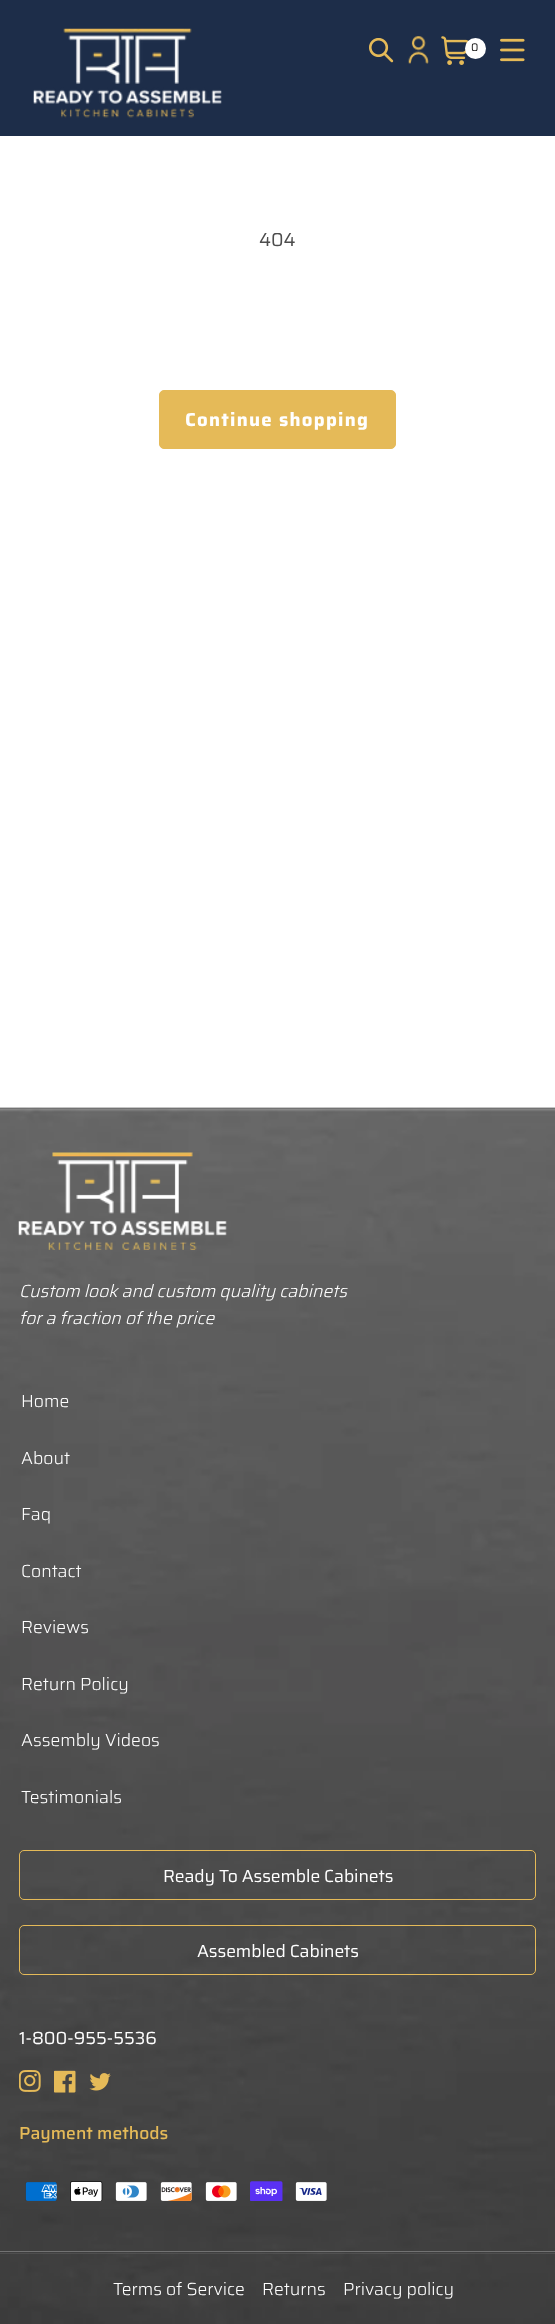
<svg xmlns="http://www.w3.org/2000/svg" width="555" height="2324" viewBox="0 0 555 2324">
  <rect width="100%" height="100%" fill="#ffffff"/>
  <rect x="0" y="0" width="555" height="136" fill="#1d2d49"/>
  <image x="33" y="28" width="189" height="90" href="img1.png"/>
  <image x="369" y="38" width="25" height="25" href="img2.png"/>
  <image x="408" y="36" width="21" height="28" href="img3.png"/>
  <image x="441" y="36" width="28" height="29" href="img4.png"/>
  <circle cx="475.5" cy="48.5" r="10.5" fill="#ffffff"/>
  <text x="471" y="51" font-family="Saira" font-size="11" font-weight="100" fill="#121212">0</text>
  <image x="500" y="38" width="25" height="24" href="img5.png"/>
  <text x="259" y="246" font-family="Saira" font-size="18.75" font-weight="100" fill="#4d4d4d">404</text>
  <rect x="159.5" y="390.5" width="236" height="58" rx="4.5" fill="#e5ba58" stroke="#e5ba58"/>
  <text x="185" y="426" font-family="Saira" font-size="18.75" font-weight="bold" letter-spacing="1.25" fill="#ffffff">Continue shopping</text>
  <image x="0" y="1107" width="555" height="1217" href="img6.png"/>
  <rect x="0" y="1108" width="555" height="1" fill="#727272"/>
  <rect x="0" y="2251" width="555" height="1" fill="#727272"/>
  <image x="18" y="1152" width="209" height="98" href="img7.png"/>
  <text x="19" y="1297" font-family="Saira" font-size="17.5" font-weight="300" font-style="italic" fill="#ffffff">Custom look and custom quality cabinets</text>
  <text x="19" y="1324" font-family="Saira" font-size="17.5" font-weight="300" font-style="italic" fill="#ffffff">for a fraction of the price</text>
  <text x="21" y="1407" font-family="Saira" font-size="17.5" font-weight="300" fill="#ffffff">Home</text>
  <text x="21" y="1464" font-family="Saira" font-size="17.5" font-weight="300" fill="#ffffff">About</text>
  <text x="21" y="1520" font-family="Saira" font-size="17.5" font-weight="300" fill="#ffffff">Faq</text>
  <text x="21" y="1577" font-family="Saira" font-size="17.5" font-weight="300" fill="#ffffff">Contact</text>
  <text x="21" y="1633" font-family="Saira" font-size="17.5" font-weight="300" fill="#ffffff">Reviews</text>
  <text x="21" y="1690" font-family="Saira" font-size="17.5" font-weight="300" fill="#ffffff">Return Policy</text>
  <text x="21" y="1746" font-family="Saira" font-size="17.5" font-weight="300" fill="#ffffff">Assembly Videos</text>
  <text x="21" y="1803" font-family="Saira" font-size="17.5" font-weight="300" fill="#ffffff">Testimonials</text>
  <rect x="19.5" y="1850.5" width="516" height="49" rx="4.5" fill="none" stroke="#e5ba58"/>
  <text x="163" y="1882" font-family="Saira" font-size="17.5" font-weight="100" letter-spacing="-0.1" fill="#ffffff">Ready To Assemble Cabinets</text>
  <rect x="19.5" y="1925.5" width="516" height="49" rx="4.5" fill="none" stroke="#e5ba58"/>
  <text x="197" y="1957" font-family="Saira" font-size="17.5" font-weight="100" letter-spacing="-0.1" fill="#ffffff">Assembled Cabinets</text>
  <text x="19" y="2044" font-family="Saira" font-size="17.5" font-weight="100" fill="#ffffff">1-800-955-5536</text>
  <image x="19" y="2070" width="22" height="22" href="img8.png"/>
  <image x="54" y="2070" width="22" height="23" href="img9.png"/>
  <image x="89" y="2073" width="22" height="18" href="img10.png"/>
  <text x="19" y="2139" font-family="Saira" font-size="17.5" font-weight="500" fill="#e5ba58">Payment methods</text>
  <image x="25" y="2182" width="32" height="19" href="img11.png"/>
  <image x="70" y="2181" width="33" height="20" href="img12.png"/>
  <image x="115" y="2182" width="32" height="19" href="img13.png"/>
  <image x="160" y="2182" width="32" height="19" href="img14.png"/>
  <image x="205" y="2182" width="32" height="19" href="img15.png"/>
  <image x="250" y="2181" width="33" height="20" href="img16.png"/>
  <image x="295" y="2182" width="32" height="19" href="img17.png"/>
  <rect x="0" y="2253" width="555" height="1" fill="#ffffff" fill-opacity="0.08"/>
  <text x="113" y="2295" font-family="Saira" font-size="17.5" font-weight="300" fill="#ffffff">Terms of Service</text>
  <text x="262" y="2295" font-family="Saira" font-size="17.5" font-weight="300" fill="#ffffff">Returns</text>
  <text x="343" y="2295" font-family="Saira" font-size="17.5" font-weight="300" fill="#ffffff">Privacy policy</text>
</svg>
